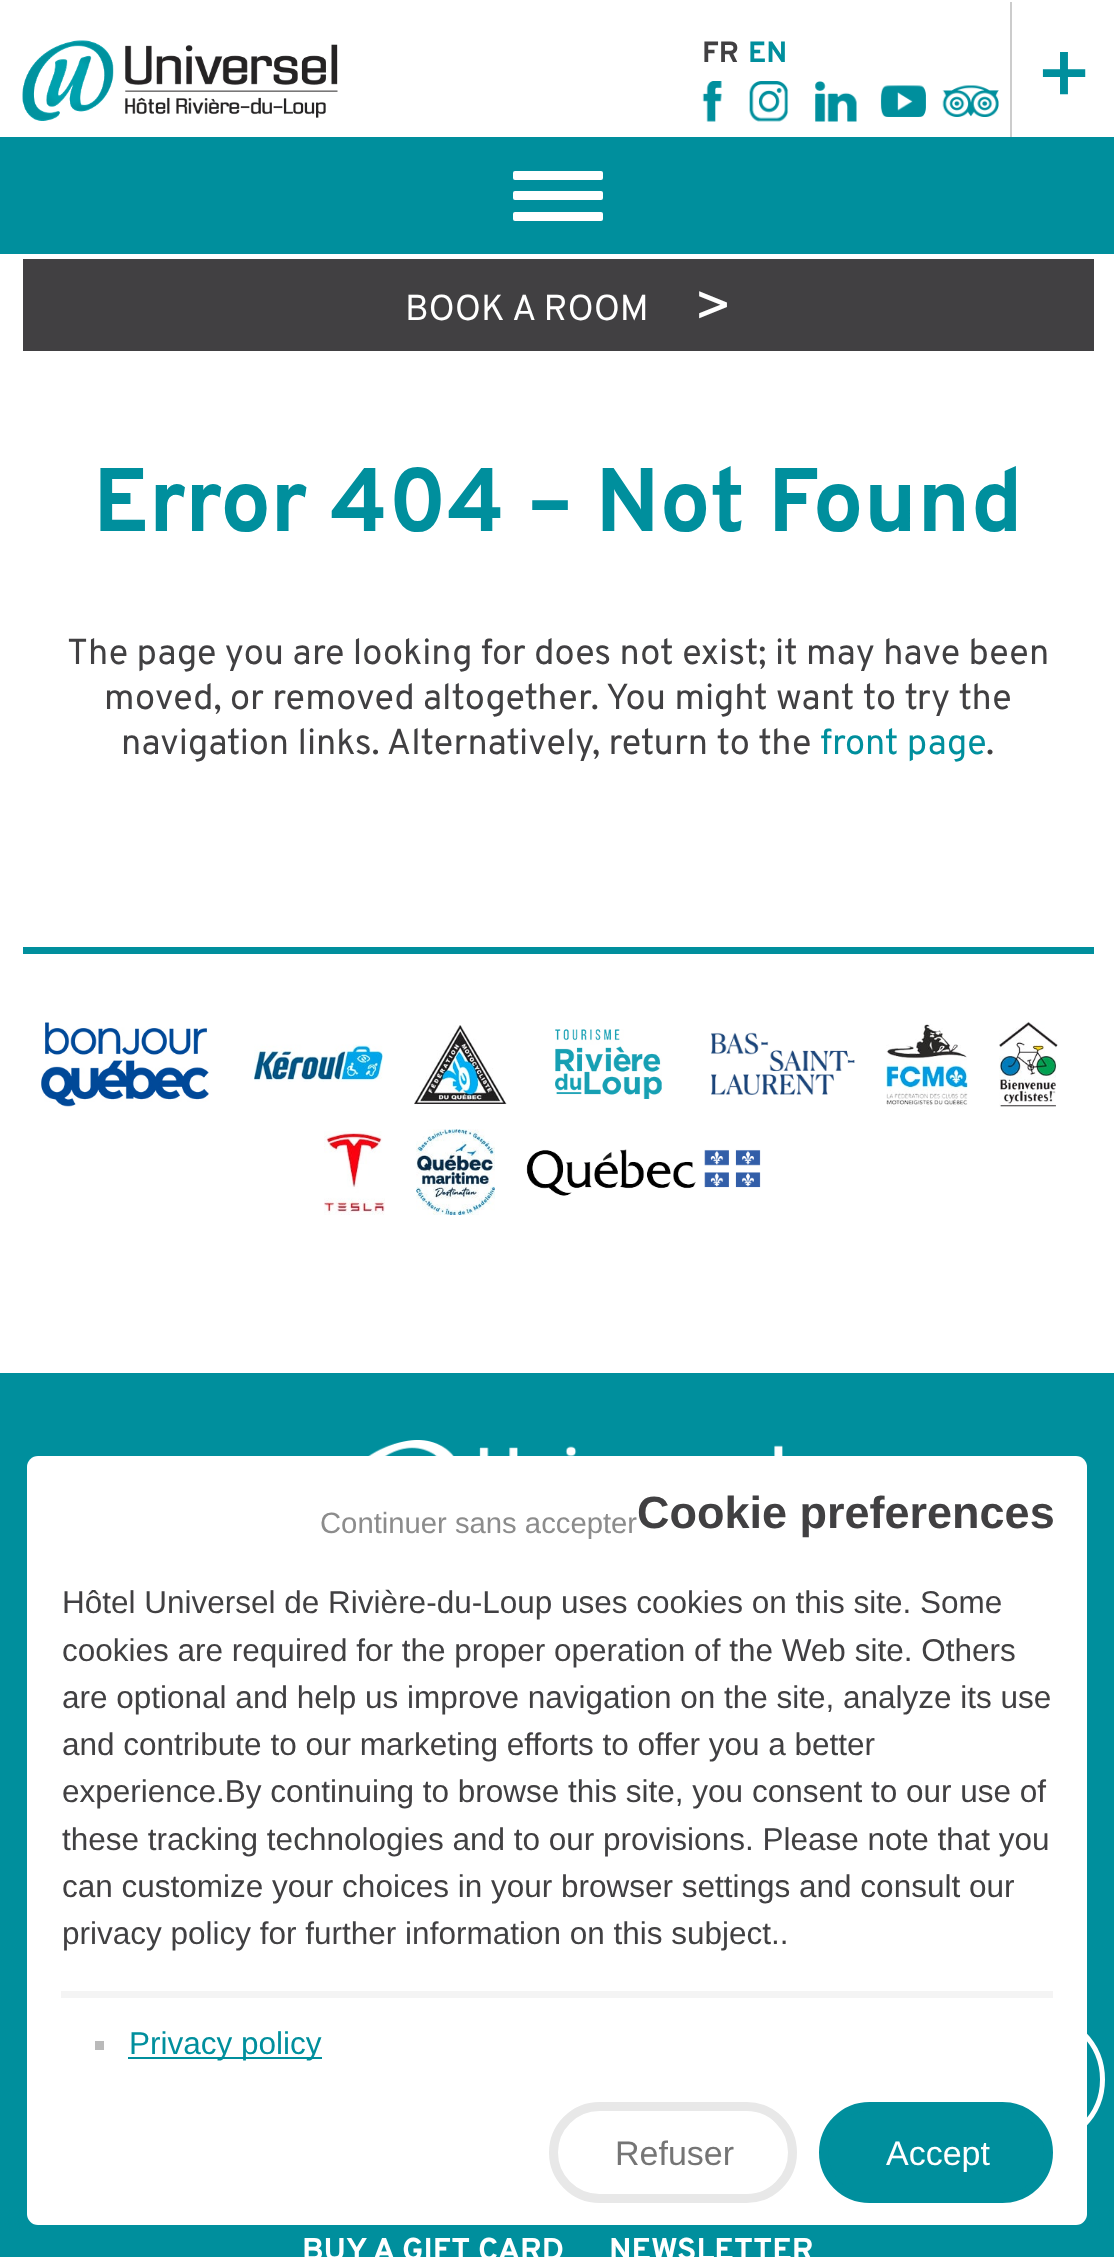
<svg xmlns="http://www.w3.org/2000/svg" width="1114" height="2257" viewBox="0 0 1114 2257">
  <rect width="100%" height="100%" fill="#ffffff"/>
  <image x="22" y="40" width="316" height="81" href="img1.png"/>
  <text x="702" y="62" font-family="Overpass" font-size="29.25" font-weight="bold" fill="#414042">FR</text>
  <text x="748" y="62" font-family="Overpass" font-size="29.25" font-weight="bold" fill="#008f9d">EN</text>
  <image x="702" y="81" width="20" height="41" href="img2.png"/>
  <image x="749" y="81" width="40" height="41" href="img3.png"/>
  <image x="815" y="81" width="42" height="41" href="img4.png"/>
  <image x="880" y="85" width="46" height="32" href="img5.png"/>
  <image x="942" y="85" width="57" height="32" href="img6.png"/>
  <rect x="1010" y="2" width="2" height="135" fill="#cccccc"/>
  <text x="1035" y="104" font-family="Overpass" font-size="90" fill="#008f9d">+</text>
  <rect x="0" y="137" width="1114" height="117" fill="#008f9d"/>
  <rect x="513" y="171" width="90" height="9" rx="2" fill="#ffffff"/>
  <rect x="513" y="191" width="90" height="9" rx="2" fill="#ffffff"/>
  <rect x="513" y="212" width="90" height="9" rx="2" fill="#ffffff"/>
  <rect x="23" y="259" width="1071" height="92" fill="#414042"/>
  <text x="405" y="320" font-family="Overpass" font-size="36" fill="#ffffff">BOOK</text>
  <text x="512" y="320" font-family="Overpass" font-size="36" fill="#ffffff">A ROOM</text>
  <text x="694" y="325" font-family="Overpass" font-size="59" letter-spacing="-21" fill="#ffffff">&gt;</text>
  <text x="93" y="531" font-family="Overpass" font-size="90" font-weight="bold" fill="#008f9d">Error 404 – Not Found</text>
  <text x="67" y="664" font-family="Overpass" font-size="36" fill="#414042">The page you are looking for does not exist; it may have been</text>
  <text x="104" y="709" font-family="Overpass" font-size="36" fill="#414042">moved, or removed altogether. You might want to try the</text>
  <text x="121" y="754" font-family="Overpass" font-size="36" fill="#414042">navigation links. Alternatively, return to the</text>
  <text x="820" y="754" font-family="Overpass" font-size="36" fill="#008f9d">front page</text>
  <text x="986" y="754" font-family="Overpass" font-size="36" fill="#414042">.</text>
  <rect x="23" y="947" width="1071" height="7" fill="#008f9d"/>
  <image x="41" y="1022" width="168" height="85" href="img7.png"/>
  <image x="254" y="1044" width="129" height="38" href="img8.png"/>
  <image x="414" y="1025" width="93" height="80" href="img9.png"/>
  <image x="555" y="1029" width="107" height="70" href="img10.png"/>
  <image x="711" y="1032" width="144" height="63" href="img11.png"/>
  <image x="886" y="1024" width="82" height="83" href="img12.png"/>
  <image x="999" y="1021" width="59" height="86" href="img13.png"/>
  <image x="324" y="1131" width="61" height="84" href="img14.png"/>
  <image x="416" y="1129" width="79" height="86" href="img15.png"/>
  <image x="526" y="1149" width="235" height="47" href="img16.png"/>
  <rect x="0" y="1373" width="1114" height="884" fill="#008f9d"/>
  <circle cx="1037.5" cy="2079.5" r="65" fill="none" stroke="#ffffff" stroke-width="5"/>
  <image x="368" y="1440" width="415" height="16" href="img17.png"/>
  <text x="302" y="2260" font-family="Overpass" font-size="31.5" font-weight="bold" fill="#ffffff">BUY A GIFT CARD</text>
  <text x="609" y="2260" font-family="Overpass" font-size="31.5" font-weight="bold" fill="#ffffff">NEWSLETTER</text>
  <rect x="27" y="1456" width="1060" height="769" rx="11" fill="#ffffff"/>
  <text x="320" y="1533" font-family="Liberation Sans" font-size="29.25" fill="#8c8c8c">Continuer sans accepter</text>
  <text x="637" y="1528" font-family="Liberation Sans" font-size="45" font-weight="bold" fill="#414042">Cookie preferences</text>
  <text x="62" y="1613" font-family="Liberation Sans" font-size="31.5" fill="#414042">Hôtel Universel de Rivière-du-Loup uses cookies on this site. Some</text>
  <text x="62" y="1661" font-family="Liberation Sans" font-size="31.5" fill="#414042">cookies are required for the proper operation of the Web site. Others</text>
  <text x="62" y="1708" font-family="Liberation Sans" font-size="31.5" fill="#414042">are optional and help us improve navigation on the site, analyze its use</text>
  <text x="62" y="1755" font-family="Liberation Sans" font-size="31.5" fill="#414042">and contribute to our marketing efforts to offer you a better</text>
  <text x="62" y="1802" font-family="Liberation Sans" font-size="31.5" fill="#414042">experience.By continuing to browse this site, you consent to our use of</text>
  <text x="62" y="1850" font-family="Liberation Sans" font-size="31.5" fill="#414042">these tracking technologies and to our provisions. Please note that you</text>
  <text x="62" y="1897" font-family="Liberation Sans" font-size="31.5" fill="#414042">can customize your choices in your browser settings and consult our</text>
  <text x="62" y="1944" font-family="Liberation Sans" font-size="31.5" fill="#414042">privacy policy for further information on this subject..</text>
  <rect x="61" y="1991" width="992" height="7" fill="#f4f4f4"/>
  <rect x="95" y="2041" width="9" height="9" fill="#bababa"/>
  <rect x="128" y="2057" width="194" height="2" fill="#008f9d"/>
  <text x="129" y="2054" font-family="Liberation Sans" font-size="31.5" fill="#008f9d">Privacy policy</text>
  <rect x="553.5" y="2106.5" width="239" height="92" rx="46" fill="none" stroke="#e8e8e8" stroke-width="9"/>
  <text x="615" y="2165" font-family="Liberation Sans" font-size="34" fill="#757575">Refuser</text>
  <rect x="823.5" y="2106.5" width="225" height="92" rx="46" fill="#008f9d" stroke="#008f9d" stroke-width="9"/>
  <text x="886" y="2165" font-family="Liberation Sans" font-size="34" fill="#ffffff">Accept</text>
</svg>
